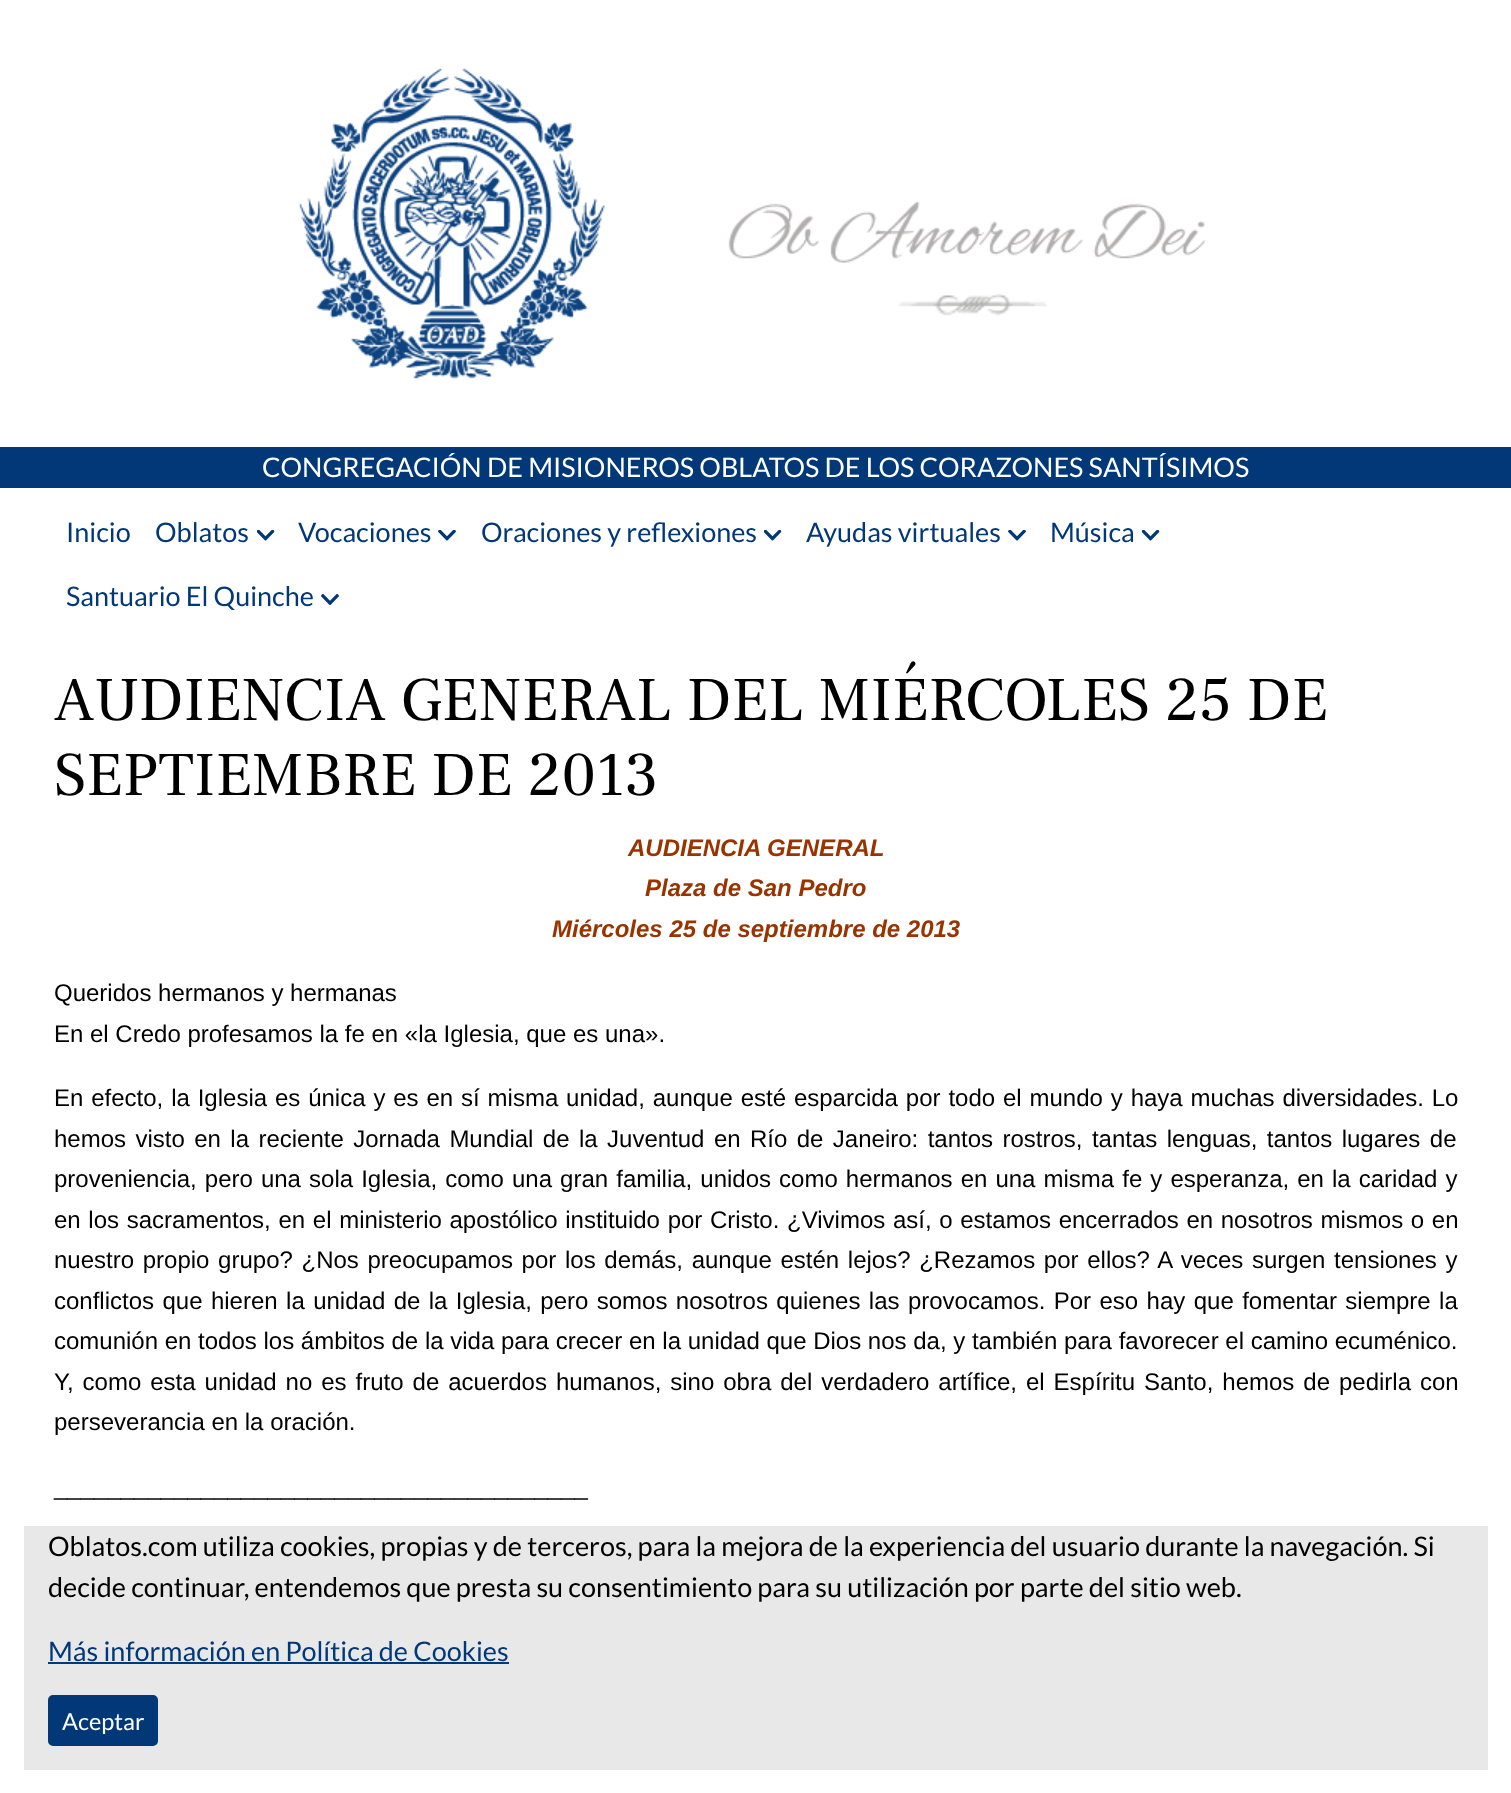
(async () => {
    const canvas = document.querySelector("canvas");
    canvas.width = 1511;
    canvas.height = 1793;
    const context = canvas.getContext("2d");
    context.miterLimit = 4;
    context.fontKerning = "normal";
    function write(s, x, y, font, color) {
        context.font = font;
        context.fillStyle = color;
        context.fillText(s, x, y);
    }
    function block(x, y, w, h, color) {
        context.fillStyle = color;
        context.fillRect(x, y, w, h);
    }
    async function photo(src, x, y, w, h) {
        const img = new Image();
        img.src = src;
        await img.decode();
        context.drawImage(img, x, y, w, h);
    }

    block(0, 0, 1511, 1793, "rgb(255, 255, 255)");
    await photo("media/1.png", 298, 68, 908, 311);
    block(0, 447, 1511, 41, "rgb(2, 56, 120)");
    write("CONGREGACIÓN DE MISIONEROS OBLATOS DE LOS CORAZONES SANTÍSIMOS", 262, 477, "27px Lato", "rgb(255, 255, 255)");
    write("Inicio", 66, 542, "27px Lato", "rgb(2, 56, 120)");
    write("Oblatos", 155, 542, "27px Lato", "rgb(2, 56, 120)");
    await photo("media/2.png", 257, 530, 18, 11);
    write("Vocaciones", 298, 542, "27px Lato", "rgb(2, 56, 120)");
    await photo("media/3.png", 438, 530, 18, 11);
    write("Oraciones y reflexiones", 481, 542, "27px Lato", "rgb(2, 56, 120)");
    await photo("media/2.png", 764, 530, 18, 11);
    write("Ayudas virtuales", 806, 542, "27px Lato", "rgb(2, 56, 120)");
    await photo("media/4.png", 1008, 530, 18, 11);
    write("Música", 1050, 542, "27px Lato", "rgb(2, 56, 120)");
    await photo("media/2.png", 1142, 530, 18, 11);
    write("Santuario El Quinche", 66, 606, "27px Lato", "rgb(2, 56, 120)");
    await photo("media/5.png", 321, 594, 18, 11);
    write("AUDIENCIA GENERAL DEL MIÉRCOLES 25 DE", 54, 720, "62.1px Frank Ruhl Libre", "rgb(0, 0, 0)");
    write("SEPTIEMBRE DE 2013", 54, 795, "62.1px Frank Ruhl Libre", "rgb(0, 0, 0)");
    write("AUDIENCIA GENERAL", 628, 856, "italic bold 24px Liberation Sans", "rgb(153, 51, 0)");
    write("Plaza de San Pedro", 645, 896, "italic bold 24px Liberation Sans", "rgb(153, 51, 0)");
    write("Miércoles 25 de septiembre de 2013", 552, 937, "italic bold 24px Liberation Sans", "rgb(153, 51, 0)");
    write("Queridos hermanos y hermanas", 54, 1001, "24px Liberation Sans", "rgb(0, 0, 0)");
    write("En el Credo profesamos la fe en «la Iglesia, que es una».", 54, 1042, "24px Liberation Sans", "rgb(0, 0, 0)");
    context.wordSpacing = "1.2px";
    write("En efecto, la Iglesia es única y es en sí misma unidad, aunque esté esparcida por todo el mundo y haya muchas diversidades. Lo", 54, 1106, "24px Liberation Sans", "rgb(0, 0, 0)");
    context.wordSpacing = "2.75px";
    write("hemos visto en la reciente Jornada Mundial de la Juventud en Río de Janeiro: tantos rostros, tantas lenguas, tantos lugares de", 54, 1147, "24px Liberation Sans", "rgb(0, 0, 0)");
    context.wordSpacing = "1.4px";
    write("proveniencia, pero una sola Iglesia, como una gran familia, unidos como hermanos en una misma fe y esperanza, en la caridad y", 54, 1187, "24px Liberation Sans", "rgb(0, 0, 0)");
    context.wordSpacing = "1px";
    write("en los sacramentos, en el ministerio apostólico instituido por Cristo. ¿Vivimos así, o estamos encerrados en nosotros mismos o en", 54, 1228, "24px Liberation Sans", "rgb(0, 0, 0)");
    context.wordSpacing = "2px";
    write("nuestro propio grupo? ¿Nos preocupamos por los demás, aunque estén lejos? ¿Rezamos por ellos? A veces surgen tensiones y", 54, 1268, "24px Liberation Sans", "rgb(0, 0, 0)");
    context.wordSpacing = "1.75px";
    write("conflictos que hieren la unidad de la Iglesia, pero somos nosotros quienes las provocamos. Por eso hay que fomentar siempre la", 54, 1309, "24px Liberation Sans", "rgb(0, 0, 0)");
    context.wordSpacing = "0px";
    write("comunión en todos los ámbitos de la vida para crecer en la unidad que Dios nos da, y también para favorecer el camino ecuménico.", 54, 1349, "24px Liberation Sans", "rgb(0, 0, 0)");
    context.wordSpacing = "2.3px";
    write("Y, como esta unidad no es fruto de acuerdos humanos, sino obra del verdadero artífice, el Espíritu Santo, hemos de pedirla con", 54, 1390, "24px Liberation Sans", "rgb(0, 0, 0)");
    context.wordSpacing = "0px";
    write("perseverancia en la oración.", 54, 1430, "24px Liberation Sans", "rgb(0, 0, 0)");
    write("________________________________________", 54, 1495, "24px Liberation Sans", "rgb(0, 0, 0)");
    block(24, 1526, 1464, 244, "rgb(232, 232, 232)");
    write("Oblatos.com utiliza cookies, propias y de terceros, para la mejora de la experiencia del usuario durante la navegación. Si", 48, 1556, "27px Lato", "rgb(0, 0, 0)");
    write("decide continuar, entendemos que presta su consentimiento para su utilización por parte del sitio web.", 48, 1597, "27px Lato", "rgb(0, 0, 0)");
    write("Más información en Política de Cookies", 48, 1661, "27px Lato", "rgb(2, 56, 120)");
    block(48, 1662, 461, 2, "rgb(2, 56, 120)");
    context.beginPath();
    context.roundRect(49, 1696, 108, 49, 4);
    context.fill();
    context.strokeStyle = "rgb(2, 56, 120)";
    context.lineWidth = 2;
    context.stroke();
    write("Aceptar", 62, 1730, "23.5px Lato", "rgb(255, 255, 255)");
})();
